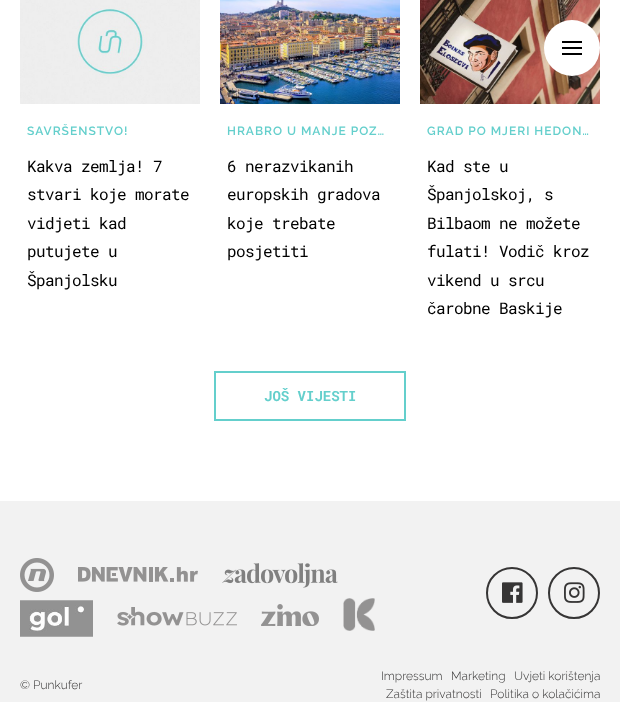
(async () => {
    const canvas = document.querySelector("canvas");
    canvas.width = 620;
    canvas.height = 702;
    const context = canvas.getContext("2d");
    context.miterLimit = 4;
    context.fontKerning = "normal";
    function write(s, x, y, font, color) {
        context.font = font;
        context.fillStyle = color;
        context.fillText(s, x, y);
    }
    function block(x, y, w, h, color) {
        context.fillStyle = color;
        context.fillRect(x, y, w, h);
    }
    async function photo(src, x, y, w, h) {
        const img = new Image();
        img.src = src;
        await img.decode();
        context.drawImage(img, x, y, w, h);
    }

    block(0, 0, 620, 702, "rgb(255, 255, 255)");
    await photo("media/3.png", 420, 0, 180, 104);
    context.beginPath();
    context.arc(572, 48, 28, 0, Math.PI * 2);
    context.fill();
    block(562, 47, 20, 2, "rgb(0, 0, 0)");
    block(562, 41, 20, 2, "rgb(0, 0, 0)");
    block(562, 53, 20, 2, "rgb(0, 0, 0)");
    await photo("media/1.png", 20, 0, 180, 104);
    context.letterSpacing = "1px";
    write("SAVRŠENSTVO!", 27, 135, "600 12px Raleway", "rgb(100, 207, 204)");
    context.letterSpacing = "-0.6px";
    write("Kakva zemlja! 7", 27, 172, "16px Roboto Mono", "rgb(0, 0, 0)");
    write("stvari koje morate", 27, 200, "16px Roboto Mono", "rgb(0, 0, 0)");
    write("vidjeti kad", 27, 229, "16px Roboto Mono", "rgb(0, 0, 0)");
    write("putujete u", 27, 257, "16px Roboto Mono", "rgb(0, 0, 0)");
    write("Španjolsku", 27, 286, "16px Roboto Mono", "rgb(0, 0, 0)");
    await photo("media/2.png", 220, 0, 180, 104);
    context.letterSpacing = "1px";
    write("HRABRO U MANJE POZ…", 227, 135, "600 12px Raleway", "rgb(100, 207, 204)");
    context.letterSpacing = "-0.6px";
    write("6 nerazvikanih", 227, 172, "16px Roboto Mono", "rgb(0, 0, 0)");
    write("europskih gradova", 227, 200, "16px Roboto Mono", "rgb(0, 0, 0)");
    write("koje trebate", 227, 229, "16px Roboto Mono", "rgb(0, 0, 0)");
    write("posjetiti", 227, 257, "16px Roboto Mono", "rgb(0, 0, 0)");
    context.letterSpacing = "1px";
    write("GRAD PO MJERI HEDON…", 427, 135, "600 12px Raleway", "rgb(100, 207, 204)");
    context.letterSpacing = "-0.6px";
    write("Kad ste u", 427, 172, "16px Roboto Mono", "rgb(0, 0, 0)");
    write("Španjolskoj, s", 427, 200, "16px Roboto Mono", "rgb(0, 0, 0)");
    write("Bilbaom ne možete", 427, 229, "16px Roboto Mono", "rgb(0, 0, 0)");
    write("fulati! Vodič kroz", 427, 257, "16px Roboto Mono", "rgb(0, 0, 0)");
    write("vikend u srcu", 427, 286, "16px Roboto Mono", "rgb(0, 0, 0)");
    write("čarobne Baskije", 427, 314, "16px Roboto Mono", "rgb(0, 0, 0)");
    context.strokeStyle = "rgb(100, 207, 204)";
    context.lineWidth = 2;
    context.strokeRect(215, 372, 190, 48);
    context.letterSpacing = "0px";
    write("JOŠ VIJESTI", 264, 401, "bold 14px Roboto Mono", "rgb(100, 207, 204)");
    block(0, 501, 620, 201, "rgb(242, 242, 242)");
    await photo("media/4.png", 20, 558, 34, 34);
    await photo("media/5.png", 78, 567, 120, 15);
    await photo("media/6.png", 222, 563, 116, 25);
    await photo("media/7.png", 20, 600, 73, 37);
    await photo("media/8.png", 117, 607, 120, 19);
    await photo("media/9.png", 261, 604, 58, 22);
    await photo("media/10.png", 343, 598, 32, 33);
    context.beginPath();
    context.arc(512, 593, 25, 0, Math.PI * 2);
    context.strokeStyle = "rgb(54, 53, 53)";
    context.stroke();
    await photo("media/11.png", 502, 582, 21, 21);
    context.beginPath();
    context.arc(574, 593, 25, 0, Math.PI * 2);
    context.stroke();
    await photo("media/12.png", 564, 582, 21, 21);
    write("© Punkufer", 20, 689, "300 12px Raleway", "rgb(54, 53, 53)");
    write("Impressum", 381, 680, "300 12px Raleway", "rgb(54, 53, 53)");
    write("Marketing", 451, 680, "300 12px Raleway", "rgb(54, 53, 53)");
    write("Uvjeti korištenja", 514, 680, "300 12px Raleway", "rgb(54, 53, 53)");
    write("Zaštita privatnosti", 386, 698, "300 12px Raleway", "rgb(54, 53, 53)");
    write("Politika o kolačićima", 490, 698, "300 12px Raleway", "rgb(54, 53, 53)");
})();
